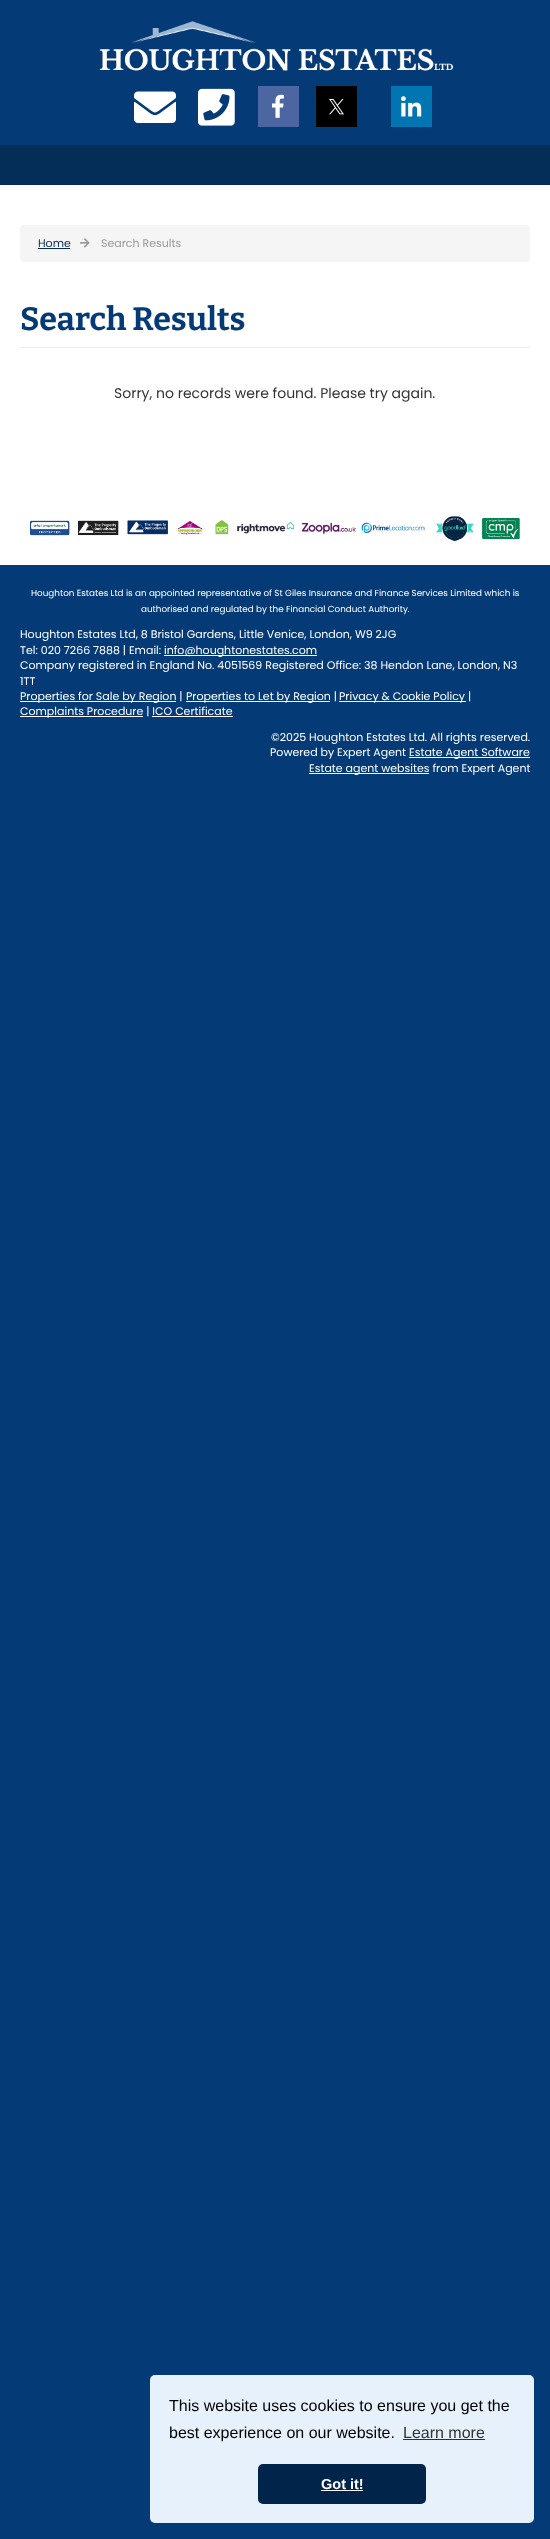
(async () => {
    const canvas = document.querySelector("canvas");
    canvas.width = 550;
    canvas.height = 2539;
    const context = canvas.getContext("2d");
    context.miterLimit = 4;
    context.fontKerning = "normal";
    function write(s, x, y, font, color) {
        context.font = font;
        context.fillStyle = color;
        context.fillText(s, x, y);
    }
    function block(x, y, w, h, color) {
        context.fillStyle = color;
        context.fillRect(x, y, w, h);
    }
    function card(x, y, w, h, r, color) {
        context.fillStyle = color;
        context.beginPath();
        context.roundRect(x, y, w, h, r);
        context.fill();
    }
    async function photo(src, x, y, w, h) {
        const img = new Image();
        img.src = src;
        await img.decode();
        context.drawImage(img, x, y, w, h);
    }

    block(0, 0, 550, 2539, "rgb(4, 59, 118)");
    await photo("media/1.png", 99, 21, 355, 50);
    await photo("media/2.png", 134, 91, 42, 32);
    await photo("media/3.png", 198, 88, 37, 38);
    block(258, 86, 41, 41, "rgb(75, 102, 160)");
    await photo("media/4.png", 272, 94, 12, 24);
    block(316, 86, 41, 41, "rgb(0, 0, 0)");
    await photo("media/5.png", 329, 99, 15, 16);
    block(391, 86, 41, 41, "rgb(0, 117, 178)");
    await photo("media/6.png", 401, 96, 21, 21);
    block(0, 145, 550, 40, "rgb(4, 45, 88)");
    block(0, 185, 550, 380, "rgb(255, 255, 255)");
    card(20, 225, 510, 37, 4, "rgb(245, 245, 245)");
    write("Home", 38, 247, "11px Poppins", "rgb(4, 45, 88)");
    block(38, 248, 32, 1, "rgb(4, 45, 88)");
    await photo("media/7.png", 80, 238, 10, 10);
    write("Search Results", 101, 247, "11px Poppins", "rgb(153, 153, 153)");
    block(20, 347, 510, 1, "rgb(238, 238, 238)");
    write("Search Results", 20, 330, "bold 32.25px Bitter", "rgb(4, 59, 118)");
    write("Sorry, no records were found. Please try again.", 114, 398, "14px Poppins", "rgb(51, 51, 51)");
    await photo("media/8.png", 30, 516, 490, 25);
    write("Houghton Estates Ltd is an appointed representative of St Giles Insurance and Finance Services Limited which is", 31, 596, "8.8px Poppins", "rgb(255, 255, 255)");
    write("authorised and regulated by the Financial Conduct Authority.", 141, 612, "8.8px Poppins", "rgb(255, 255, 255)");
    write("Houghton Estates Ltd, 8 Bristol Gardens, Little Venice, London, W9 2JG", 20, 638, "11px Poppins", "rgb(255, 255, 255)");
    write("Tel: 020 7266 7888 | Email:", 20, 654, "11px Poppins", "rgb(255, 255, 255)");
    block(164, 655, 153, 1, "rgb(255, 255, 255)");
    write("info@houghtonestates.com", 164, 654, "11px Poppins", "rgb(255, 255, 255)");
    write("Company registered in England No. 4051569 Registered Office: 38 Hendon Lane, London, N3", 20, 669, "11px Poppins", "rgb(255, 255, 255)");
    write("1TT", 20, 685, "11px Poppins", "rgb(255, 255, 255)");
    block(20, 701, 156, 1, "rgb(255, 255, 255)");
    write("Properties for Sale by Region |", 20, 700, "11px Poppins", "rgb(255, 255, 255)");
    block(186, 701, 144, 1, "rgb(255, 255, 255)");
    write("Properties to Let by Region |", 186, 700, "11px Poppins", "rgb(255, 255, 255)");
    block(339, 701, 127, 1, "rgb(255, 255, 255)");
    write("Privacy & Cookie Policy |", 339, 700, "11px Poppins", "rgb(255, 255, 255)");
    block(20, 716, 123, 1, "rgb(255, 255, 255)");
    write("Complaints Procedure | ICO Certificate", 20, 715, "11px Poppins", "rgb(255, 255, 255)");
    block(152, 716, 81, 1, "rgb(255, 255, 255)");
    write("©2025 Houghton Estates Ltd. All rights reserved.", 271, 741, "11px Poppins", "rgb(255, 255, 255)");
    write("Powered by Expert Agent", 270, 756, "11px Poppins", "rgb(255, 255, 255)");
    block(409, 757, 121, 1, "rgb(255, 255, 255)");
    write("Estate Agent Software", 409, 756, "11px Poppins", "rgb(255, 255, 255)");
    block(309, 773, 120, 1, "rgb(255, 255, 255)");
    write("Estate agent websites from Expert Agent", 309, 772, "11px Poppins", "rgb(255, 255, 255)");
    card(150, 2375, 384, 148, 5, "rgb(230, 241, 252)");
    write("This website uses cookies to ensure you get the", 169, 2411, "16px Liberation Sans", "rgb(0, 0, 0)");
    write("best experience on our website.", 169, 2438, "16px Liberation Sans", "rgb(0, 0, 0)");
    write("Learn more", 403, 2438, "16px Liberation Sans", "rgb(51, 51, 51)");
    block(403, 2439, 82, 1, "rgb(46, 48, 50)");
    card(258, 2464, 168, 40, 5, "rgb(1, 37, 74)");
    write("Got it!", 321, 2489, "bold 14.5px Liberation Sans", "rgb(255, 255, 255)");
    block(321, 2490, 42, 1, "rgb(255, 255, 255)");
})();
